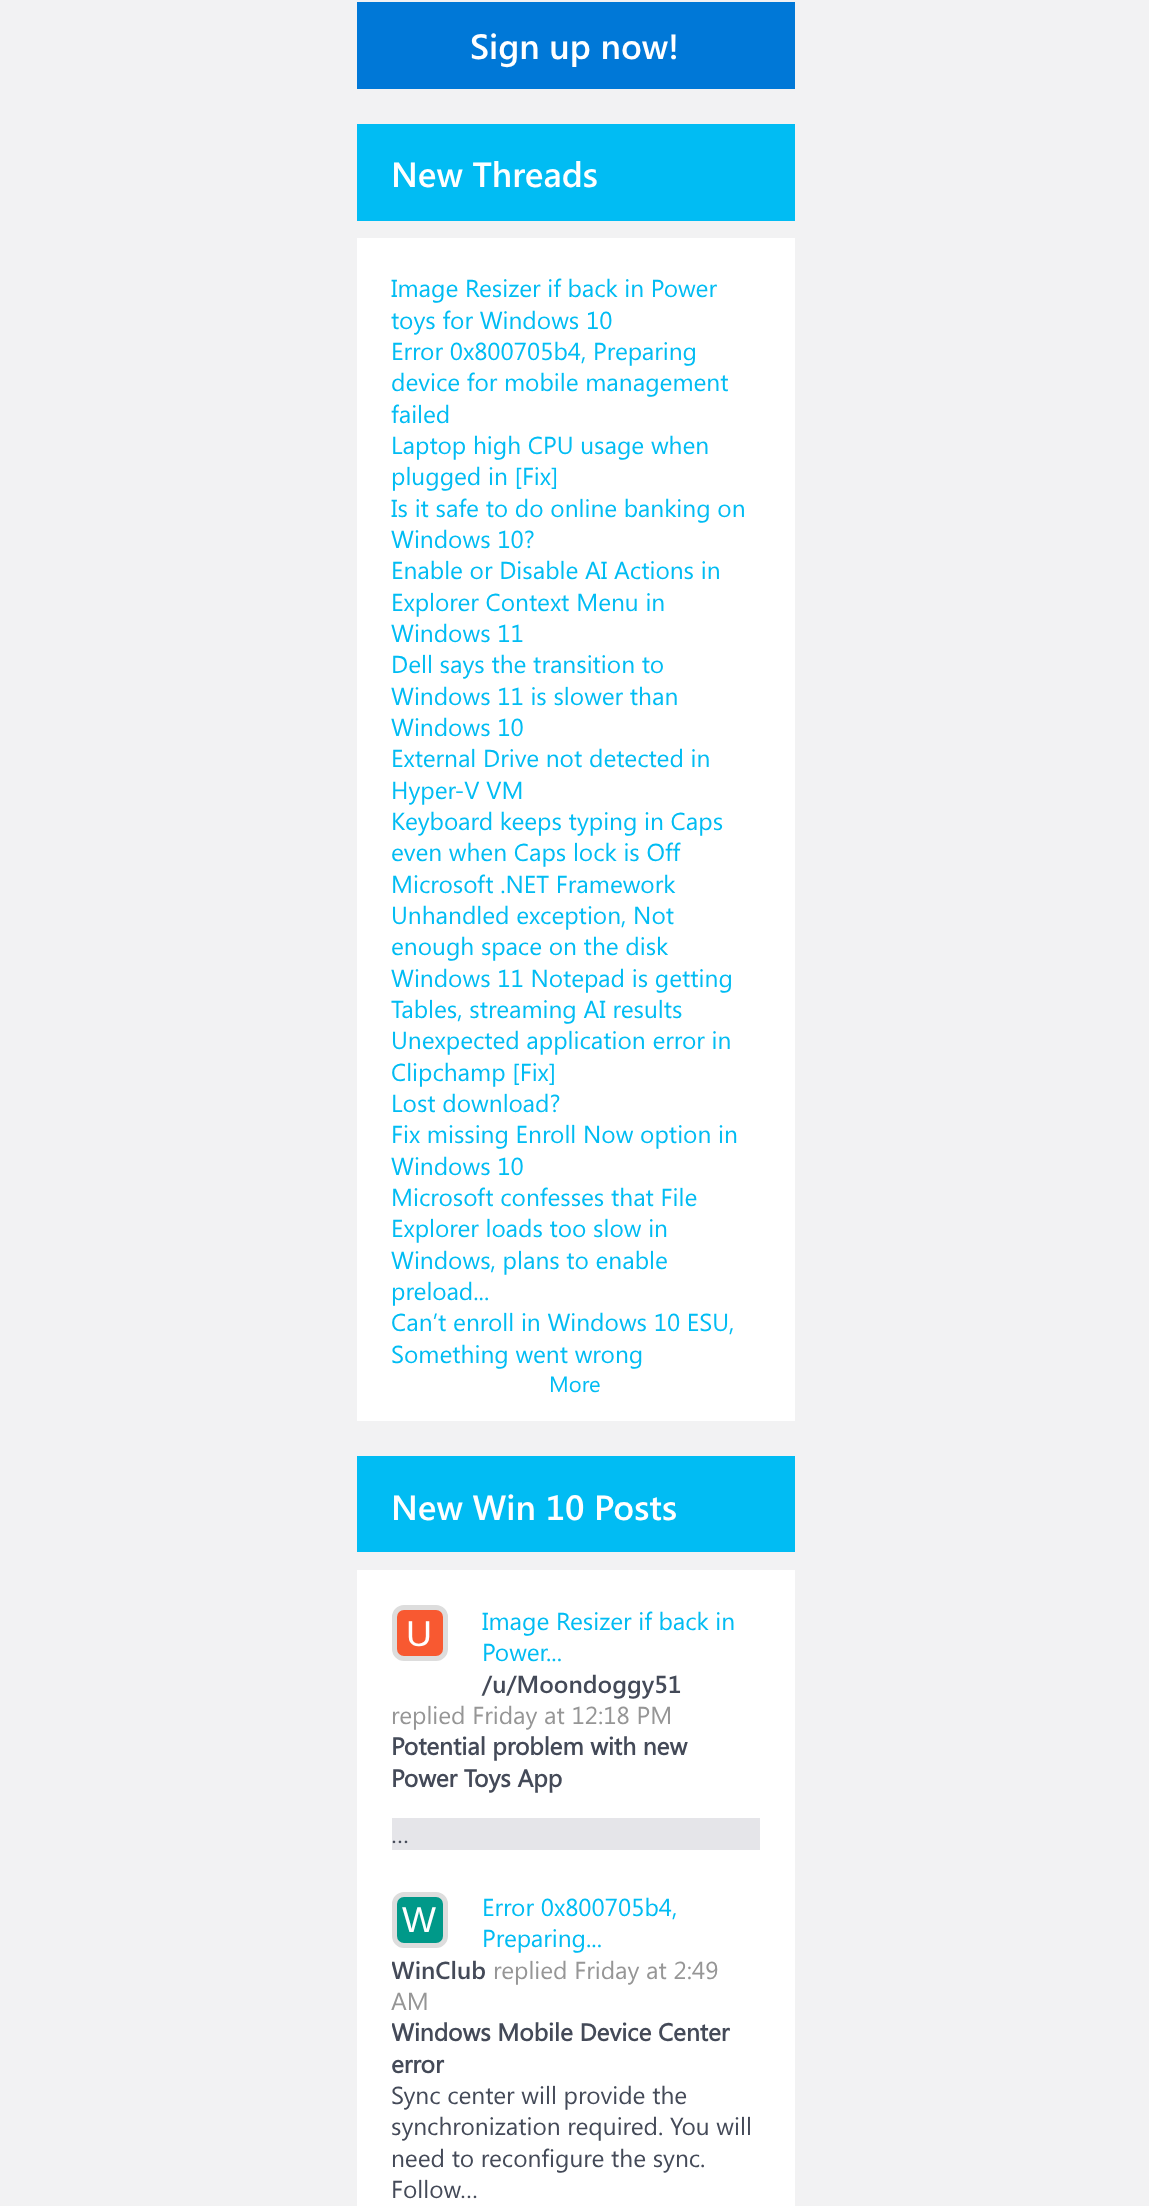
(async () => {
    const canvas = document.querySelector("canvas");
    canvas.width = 1149;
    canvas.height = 2206;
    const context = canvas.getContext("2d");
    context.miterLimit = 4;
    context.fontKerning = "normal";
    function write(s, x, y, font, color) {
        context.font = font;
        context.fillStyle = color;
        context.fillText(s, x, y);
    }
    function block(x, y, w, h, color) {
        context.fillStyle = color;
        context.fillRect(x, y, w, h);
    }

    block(0, 0, 1149, 2206, "rgb(242, 242, 243)");
    block(357, 2, 438, 87, "rgb(0, 120, 215)");
    write("Sign up now!", 470, 59, "600 35px Segoe UI", "rgb(255, 255, 255)");
    block(357, 124, 438, 97, "rgb(1, 188, 243)");
    write("New Threads", 391, 187, "600 35px Segoe UI", "rgb(255, 255, 255)");
    block(357, 238, 438, 1183, "rgb(255, 255, 255)");
    write("Image Resizer if back in Power", 391, 297, "24.5px Segoe UI", "rgb(1, 188, 243)");
    write("toys for Windows 10", 391, 329, "24.5px Segoe UI", "rgb(1, 188, 243)");
    write("Error 0x800705b4, Preparing", 391, 360, "24.5px Segoe UI", "rgb(1, 188, 243)");
    write("device for mobile management", 391, 391, "24.5px Segoe UI", "rgb(1, 188, 243)");
    write("failed", 391, 423, "24.5px Segoe UI", "rgb(1, 188, 243)");
    write("Laptop high CPU usage when", 391, 454, "24.5px Segoe UI", "rgb(1, 188, 243)");
    write("plugged in [Fix]", 391, 485, "24.5px Segoe UI", "rgb(1, 188, 243)");
    write("Is it safe to do online banking on", 391, 517, "24.5px Segoe UI", "rgb(1, 188, 243)");
    write("Windows 10?", 391, 548, "24.5px Segoe UI", "rgb(1, 188, 243)");
    write("Enable or Disable AI Actions in", 391, 579, "24.5px Segoe UI", "rgb(1, 188, 243)");
    write("Explorer Context Menu in", 391, 611, "24.5px Segoe UI", "rgb(1, 188, 243)");
    write("Windows 11", 391, 642, "24.5px Segoe UI", "rgb(1, 188, 243)");
    write("Dell says the transition to", 391, 673, "24.5px Segoe UI", "rgb(1, 188, 243)");
    write("Windows 11 is slower than", 391, 705, "24.5px Segoe UI", "rgb(1, 188, 243)");
    write("Windows 10", 391, 736, "24.5px Segoe UI", "rgb(1, 188, 243)");
    write("External Drive not detected in", 391, 767, "24.5px Segoe UI", "rgb(1, 188, 243)");
    write("Hyper-V VM", 391, 799, "24.5px Segoe UI", "rgb(1, 188, 243)");
    write("Keyboard keeps typing in Caps", 391, 830, "24.5px Segoe UI", "rgb(1, 188, 243)");
    write("even when Caps lock is Off", 391, 861, "24.5px Segoe UI", "rgb(1, 188, 243)");
    write("Microsoft .NET Framework", 391, 893, "24.5px Segoe UI", "rgb(1, 188, 243)");
    write("Unhandled exception, Not", 391, 924, "24.5px Segoe UI", "rgb(1, 188, 243)");
    write("enough space on the disk", 391, 955, "24.5px Segoe UI", "rgb(1, 188, 243)");
    write("Windows 11 Notepad is getting", 391, 987, "24.5px Segoe UI", "rgb(1, 188, 243)");
    write("Tables, streaming AI results", 391, 1018, "24.5px Segoe UI", "rgb(1, 188, 243)");
    write("Unexpected application error in", 391, 1049, "24.5px Segoe UI", "rgb(1, 188, 243)");
    write("Clipchamp [Fix]", 391, 1081, "24.5px Segoe UI", "rgb(1, 188, 243)");
    write("Lost download?", 391, 1112, "24.5px Segoe UI", "rgb(1, 188, 243)");
    write("Fix missing Enroll Now option in", 391, 1143, "24.5px Segoe UI", "rgb(1, 188, 243)");
    write("Windows 10", 391, 1175, "24.5px Segoe UI", "rgb(1, 188, 243)");
    write("Microsoft confesses that File", 391, 1206, "24.5px Segoe UI", "rgb(1, 188, 243)");
    write("Explorer loads too slow in", 391, 1237, "24.5px Segoe UI", "rgb(1, 188, 243)");
    write("Windows, plans to enable", 391, 1269, "24.5px Segoe UI", "rgb(1, 188, 243)");
    write("preload...", 391, 1300, "24.5px Segoe UI", "rgb(1, 188, 243)");
    write("Can’t enroll in Windows 10 ESU,", 391, 1331, "24.5px Segoe UI", "rgb(1, 188, 243)");
    write("Something went wrong", 391, 1363, "24.5px Segoe UI", "rgb(1, 188, 243)");
    write("More", 549, 1392, "22px Segoe UI", "rgb(1, 188, 243)");
    block(357, 1456, 438, 96, "rgb(1, 188, 243)");
    write("New Win 10 Posts", 391, 1520, "600 35px Segoe UI", "rgb(255, 255, 255)");
    block(357, 1570, 438, 636, "rgb(255, 255, 255)");
    context.fillStyle = "rgb(248, 89, 49)";
    context.beginPath();
    context.roundRect(394.5, 1607.5, 51, 51, 9.5);
    context.fill();
    context.strokeStyle = "rgb(221, 221, 221)";
    context.lineWidth = 5;
    context.stroke();
    write("U", 406, 1646, "36px Liberation Sans", "rgb(255, 255, 255)");
    write("Image Resizer if back in", 482, 1630, "24.5px Segoe UI", "rgb(1, 188, 243)");
    write("Power...", 482, 1661, "24.5px Segoe UI", "rgb(1, 188, 243)");
    write("/u/Moondoggy51", 482, 1693, "600 24.5px Segoe UI", "rgb(68, 74, 88)");
    write("replied Friday at 12:18 PM", 391, 1724, "24.5px Segoe UI", "rgb(150, 150, 150)");
    write("Potential problem with new", 391, 1755, "bold 24.5px Segoe UI", "rgb(68, 74, 88)");
    write("Power Toys App", 391, 1787, "bold 24.5px Segoe UI", "rgb(68, 74, 88)");
    block(392, 1818, 368, 32, "rgb(229, 229, 233)");
    write("…", 391, 1843, "24.5px Segoe UI", "rgb(68, 74, 88)");
    context.fillStyle = "rgb(0, 153, 137)";
    context.beginPath();
    context.roundRect(394.5, 1894.5, 51, 51, 9.5);
    context.fill();
    context.stroke();
    write("W", 402, 1932, "36px Liberation Sans", "rgb(255, 255, 255)");
    write("Error 0x800705b4,", 482, 1916, "24.5px Segoe UI", "rgb(1, 188, 243)");
    write("Preparing...", 482, 1947, "24.5px Segoe UI", "rgb(1, 188, 243)");
    context.save();
    context.beginPath();
    context.rect(392, 1892, 368, 313);
    context.clip();
    write("WinClub", 391, 1979, "600 24.5px Segoe UI", "rgb(68, 74, 88)");
    context.restore();
    write("replied Friday at 2:49", 493, 1979, "24.5px Segoe UI", "rgb(150, 150, 150)");
    write("AM", 391, 2010, "24.5px Segoe UI", "rgb(150, 150, 150)");
    context.save();
    context.beginPath();
    context.rect(392, 1892, 368, 313);
    context.clip();
    write("Windows Mobile Device Center", 391, 2041, "bold 24.5px Segoe UI", "rgb(68, 74, 88)");
    context.restore();
    write("error", 391, 2073, "bold 24.5px Segoe UI", "rgb(68, 74, 88)");
    write("Sync center will provide the", 391, 2104, "24.5px Segoe UI", "rgb(68, 74, 88)");
    write("synchronization required. You will", 391, 2135, "24.5px Segoe UI", "rgb(68, 74, 88)");
    write("need to reconfigure the sync.", 391, 2167, "24.5px Segoe UI", "rgb(68, 74, 88)");
    write("Follow…", 391, 2198, "24.5px Segoe UI", "rgb(68, 74, 88)");
})();
